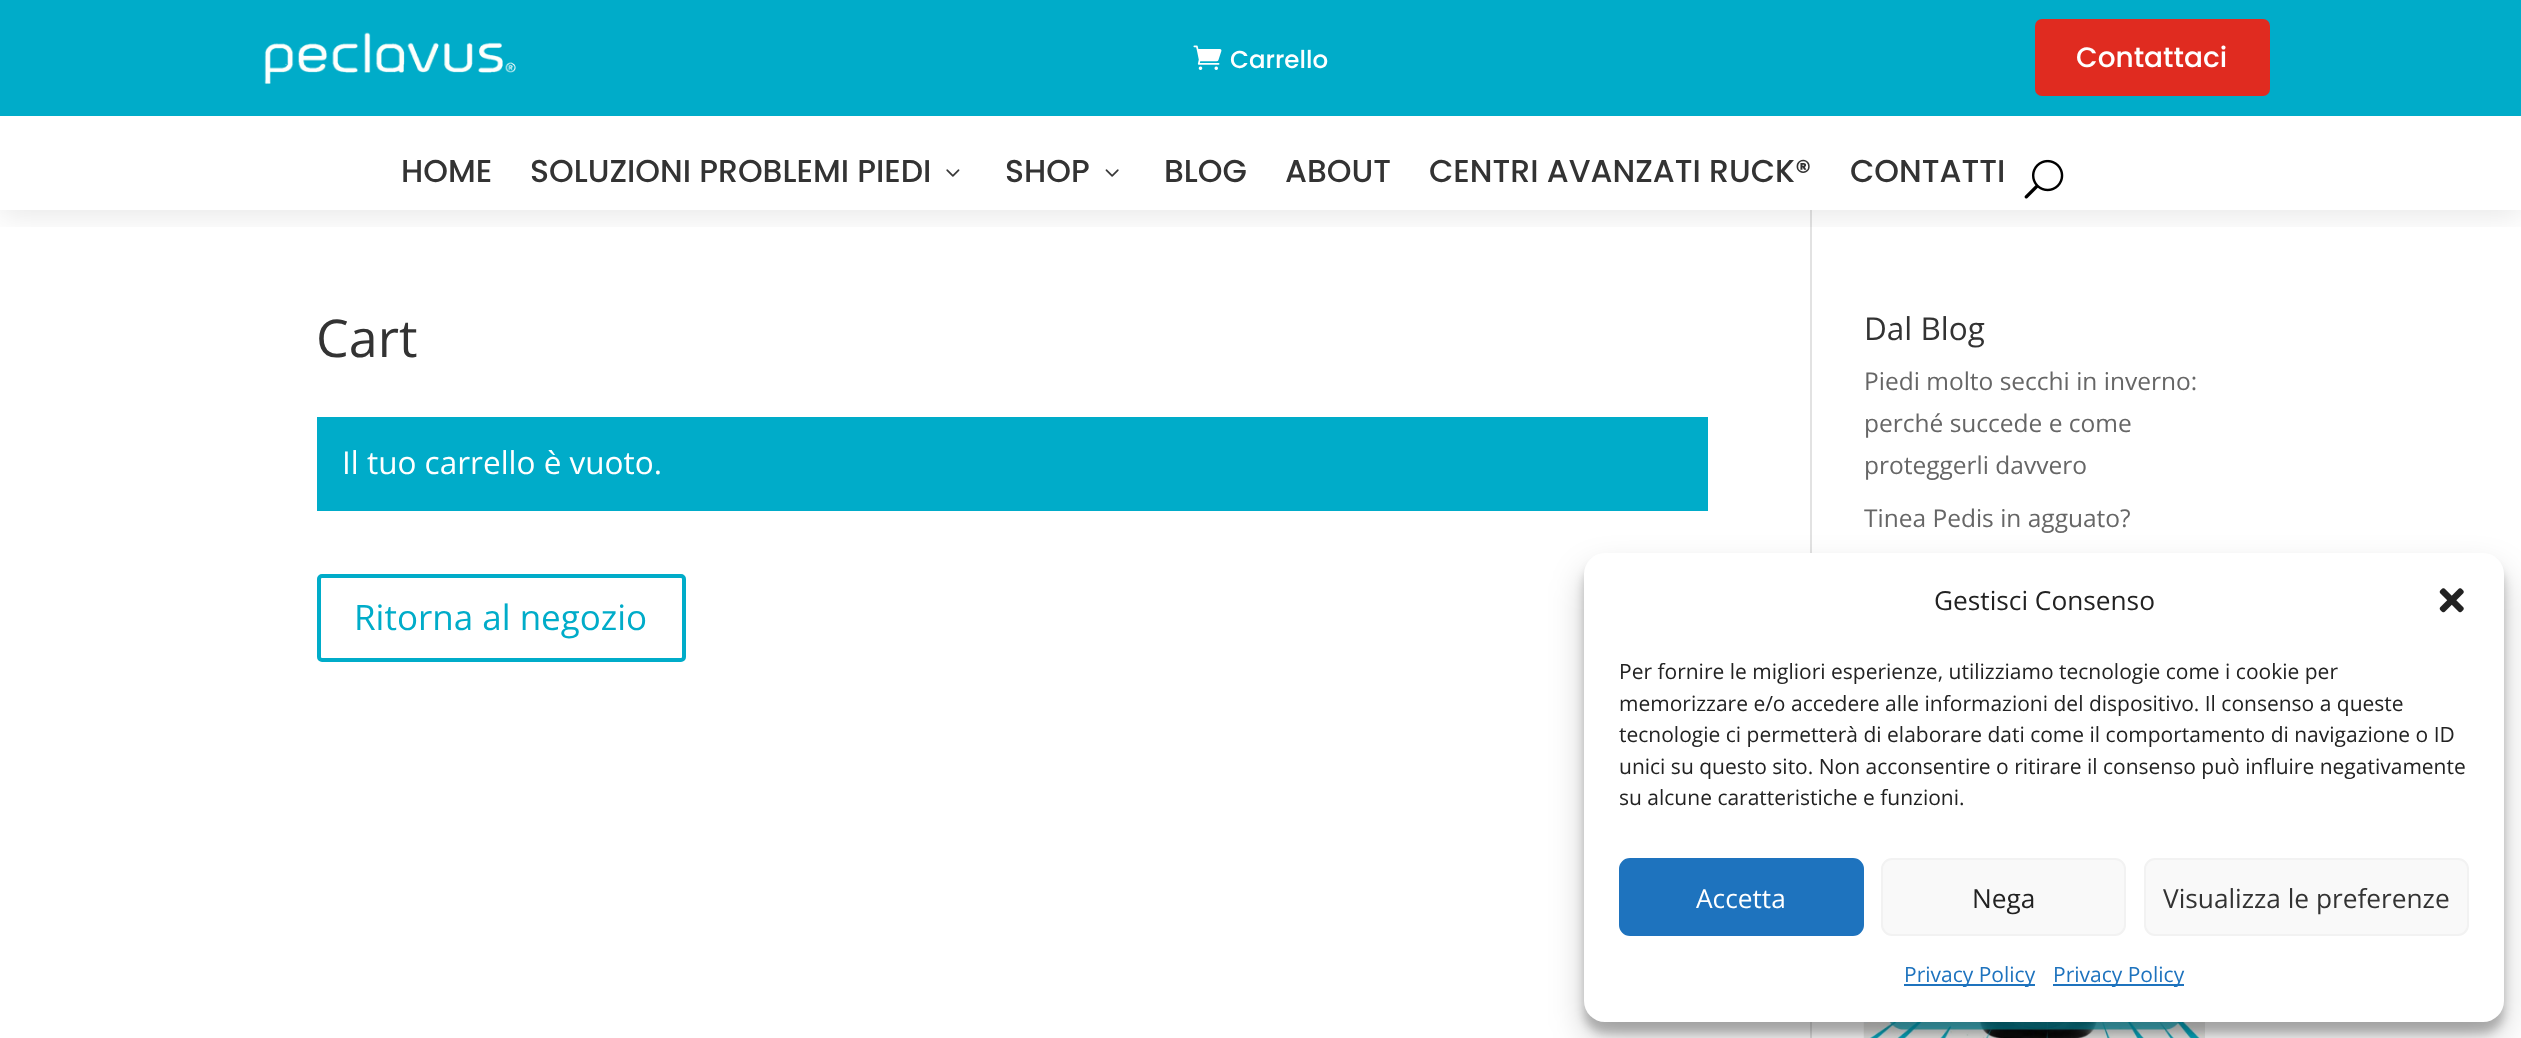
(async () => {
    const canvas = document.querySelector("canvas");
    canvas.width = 2521;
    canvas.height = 1038;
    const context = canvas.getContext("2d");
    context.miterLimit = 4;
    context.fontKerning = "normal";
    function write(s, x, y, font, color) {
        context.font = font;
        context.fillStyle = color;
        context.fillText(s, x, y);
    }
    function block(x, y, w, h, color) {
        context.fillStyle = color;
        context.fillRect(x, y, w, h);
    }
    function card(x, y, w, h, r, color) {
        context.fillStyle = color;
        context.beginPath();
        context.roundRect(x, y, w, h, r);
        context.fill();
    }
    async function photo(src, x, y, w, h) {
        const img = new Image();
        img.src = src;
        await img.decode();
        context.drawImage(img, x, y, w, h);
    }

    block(0, 0, 2521, 1038, "rgb(255, 255, 255)");
    block(1810, 210, 2, 828, "rgb(226, 226, 226)");
    context.save();
    context.beginPath();
    context.rect(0, 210, 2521, 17);
    context.clip();
    context.fillStyle = "rgba(0, 0, 0, 0.1)";
    context.filter = "blur(16px)";
    context.beginPath();
    context.rect(0, 4, 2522, 210);
    context.fill();
    context.filter = "none";
    context.restore();
    block(0, 0, 2521, 116, "rgb(0, 172, 201)");
    await photo("media/1.png", 264, 32, 252, 52);
    await photo("media/2.png", 1193, 45, 29, 25);
    write("Carrello", 1230, 68, "500 24.5px Poppins", "rgb(255, 255, 255)");
    card(2035, 19, 235, 77, 7, "rgb(224, 43, 32)");
    write("Contattaci", 2076, 67, "500 28px Poppins", "rgb(255, 255, 255)");
    write("HOME", 401, 182, "500 31.5px Poppins", "rgb(51, 51, 51)");
    write("SOLUZIONI PROBLEMI PIEDI", 530, 182, "500 31.5px Poppins", "rgb(51, 51, 51)");
    await photo("media/3.png", 946, 169, 14, 8);
    write("SHOP", 1005, 182, "500 31.5px Poppins", "rgb(51, 51, 51)");
    await photo("media/4.png", 1105, 169, 14, 8);
    write("BLOG", 1164, 182, "500 31.5px Poppins", "rgb(51, 51, 51)");
    write("ABOUT", 1285, 182, "500 31.5px Poppins", "rgb(51, 51, 51)");
    write("CENTRI AVANZATI RUCK®", 1429, 182, "500 31.5px Poppins", "rgb(51, 51, 51)");
    write("CONTATTI", 1850, 182, "500 31.5px Poppins", "rgb(51, 51, 51)");
    await photo("media/5.png", 2024, 159, 40, 40);
    write("Cart", 316, 357, "52px Open Sans", "rgb(51, 51, 51)");
    block(317, 417, 1391, 94, "rgb(0, 172, 201)");
    write("Il tuo carrello è vuoto.", 342, 474, "31.5px Open Sans", "rgb(255, 255, 255)");
    context.beginPath();
    context.roundRect(319, 576, 365, 84, 3);
    context.strokeStyle = "rgb(0, 172, 201)";
    context.lineWidth = 4;
    context.stroke();
    write("Ritorna al negozio", 354, 630, "35px Open Sans", "rgb(0, 172, 201)");
    write("Dal Blog", 1864, 340, "31.5px Open Sans", "rgb(51, 51, 51)");
    write("Piedi molto secchi in inverno:", 1864, 390, "24.5px Open Sans", "rgb(102, 102, 102)");
    write("perché succede e come", 1864, 432, "24.5px Open Sans", "rgb(102, 102, 102)");
    write("proteggerli davvero", 1864, 474, "24.5px Open Sans", "rgb(102, 102, 102)");
    write("Tinea Pedis in agguato?", 1864, 527, "24.5px Open Sans", "rgb(102, 102, 102)");
    await photo("media/6.png", 1863, 1022, 342, 16);
    context.fillStyle = "rgba(0, 0, 0, 0.23)";
    context.filter = "blur(5px)";
    context.beginPath();
    context.roundRect(1584, 564, 920, 469, 21);
    context.fill();
    context.filter = "none";
    context.fillStyle = "rgba(0, 0, 0, 0.19)";
    context.filter = "blur(17.5px)";
    context.beginPath();
    context.roundRect(1584, 571, 920, 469, 21);
    context.fill();
    context.filter = "none";
    card(1584, 553, 920, 469, 21, "rgb(255, 255, 255)");
    write("Gestisci Consenso", 1934, 610, "26.25px Open Sans", "rgb(34, 34, 34)");
    await photo("media/7.png", 2439, 588, 25, 25);
    write("Per fornire le migliori esperienze, utilizziamo tecnologie come i cookie per", 1619, 679, "21px Open Sans", "rgb(34, 34, 34)");
    write("memorizzare e/o accedere alle informazioni del dispositivo. Il consenso a queste", 1619, 711, "21px Open Sans", "rgb(34, 34, 34)");
    write("tecnologie ci permetterà di elaborare dati come il comportamento di navigazione o ID", 1619, 742, "21px Open Sans", "rgb(34, 34, 34)");
    write("unici su questo sito. Non acconsentire o ritirare il consenso può influire negativamente", 1619, 774, "21px Open Sans", "rgb(34, 34, 34)");
    write("su alcune caratteristiche e funzioni.", 1619, 805, "21px Open Sans", "rgb(34, 34, 34)");
    context.fillStyle = "rgb(30, 115, 190)";
    context.beginPath();
    context.roundRect(1620, 859, 243, 76, 10);
    context.fill();
    context.strokeStyle = "rgb(30, 115, 190)";
    context.lineWidth = 2;
    context.stroke();
    write("Accetta", 1696, 908, "26.25px Open Sans", "rgb(255, 255, 255)");
    context.fillStyle = "rgb(249, 249, 249)";
    context.beginPath();
    context.roundRect(1882, 859, 243, 76, 10);
    context.fill();
    context.strokeStyle = "rgb(242, 242, 242)";
    context.stroke();
    write("Nega", 1972, 908, "26.25px Open Sans", "rgb(34, 34, 34)");
    context.fillStyle = "rgb(249, 249, 249)";
    context.beginPath();
    context.roundRect(2145, 859, 323, 76, 10);
    context.fill();
    context.stroke();
    write("Visualizza le preferenze", 2163, 908, "26.25px Open Sans", "rgb(51, 51, 51)");
    block(1904, 984, 131, 2, "rgb(30, 115, 190)");
    write("Privacy Policy", 1904, 982, "21px Open Sans", "rgb(30, 115, 190)");
    block(2053, 984, 131, 2, "rgb(30, 115, 190)");
    write("Privacy Policy", 2053, 982, "21px Open Sans", "rgb(30, 115, 190)");
})();
